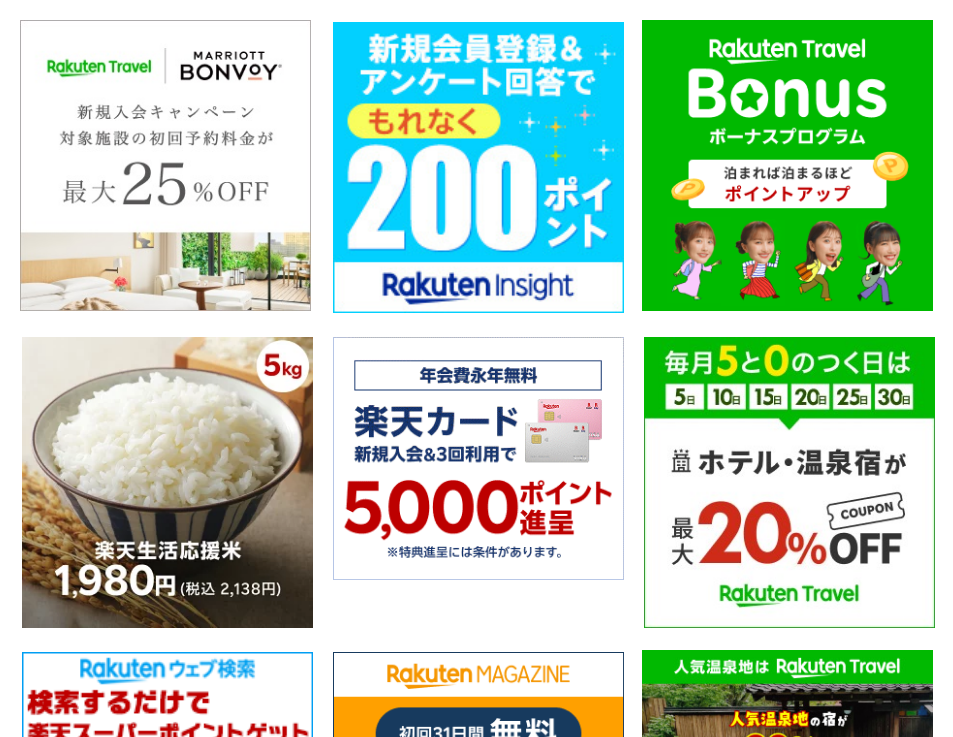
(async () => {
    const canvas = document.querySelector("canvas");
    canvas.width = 953;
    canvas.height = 737;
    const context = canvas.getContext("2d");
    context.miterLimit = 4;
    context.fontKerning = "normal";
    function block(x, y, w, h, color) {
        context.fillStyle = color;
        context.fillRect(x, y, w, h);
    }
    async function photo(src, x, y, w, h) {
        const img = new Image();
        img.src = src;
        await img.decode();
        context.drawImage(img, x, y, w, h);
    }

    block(0, 0, 953, 737, "rgb(255, 255, 255)");
    await photo("media/1.png", 20, 20, 291, 291);
    await photo("media/2.png", 333, 22, 291, 291);
    await photo("media/3.png", 642, 20, 291, 291);
    await photo("media/4.png", 22, 337, 291, 291);
    await photo("media/5.png", 333, 337, 291, 243);
    await photo("media/6.png", 644, 337, 291, 291);
    await photo("media/7.png", 22, 652, 291, 85);
    await photo("media/8.png", 333, 652, 291, 85);
    await photo("media/9.png", 642, 650, 291, 87);
})();
